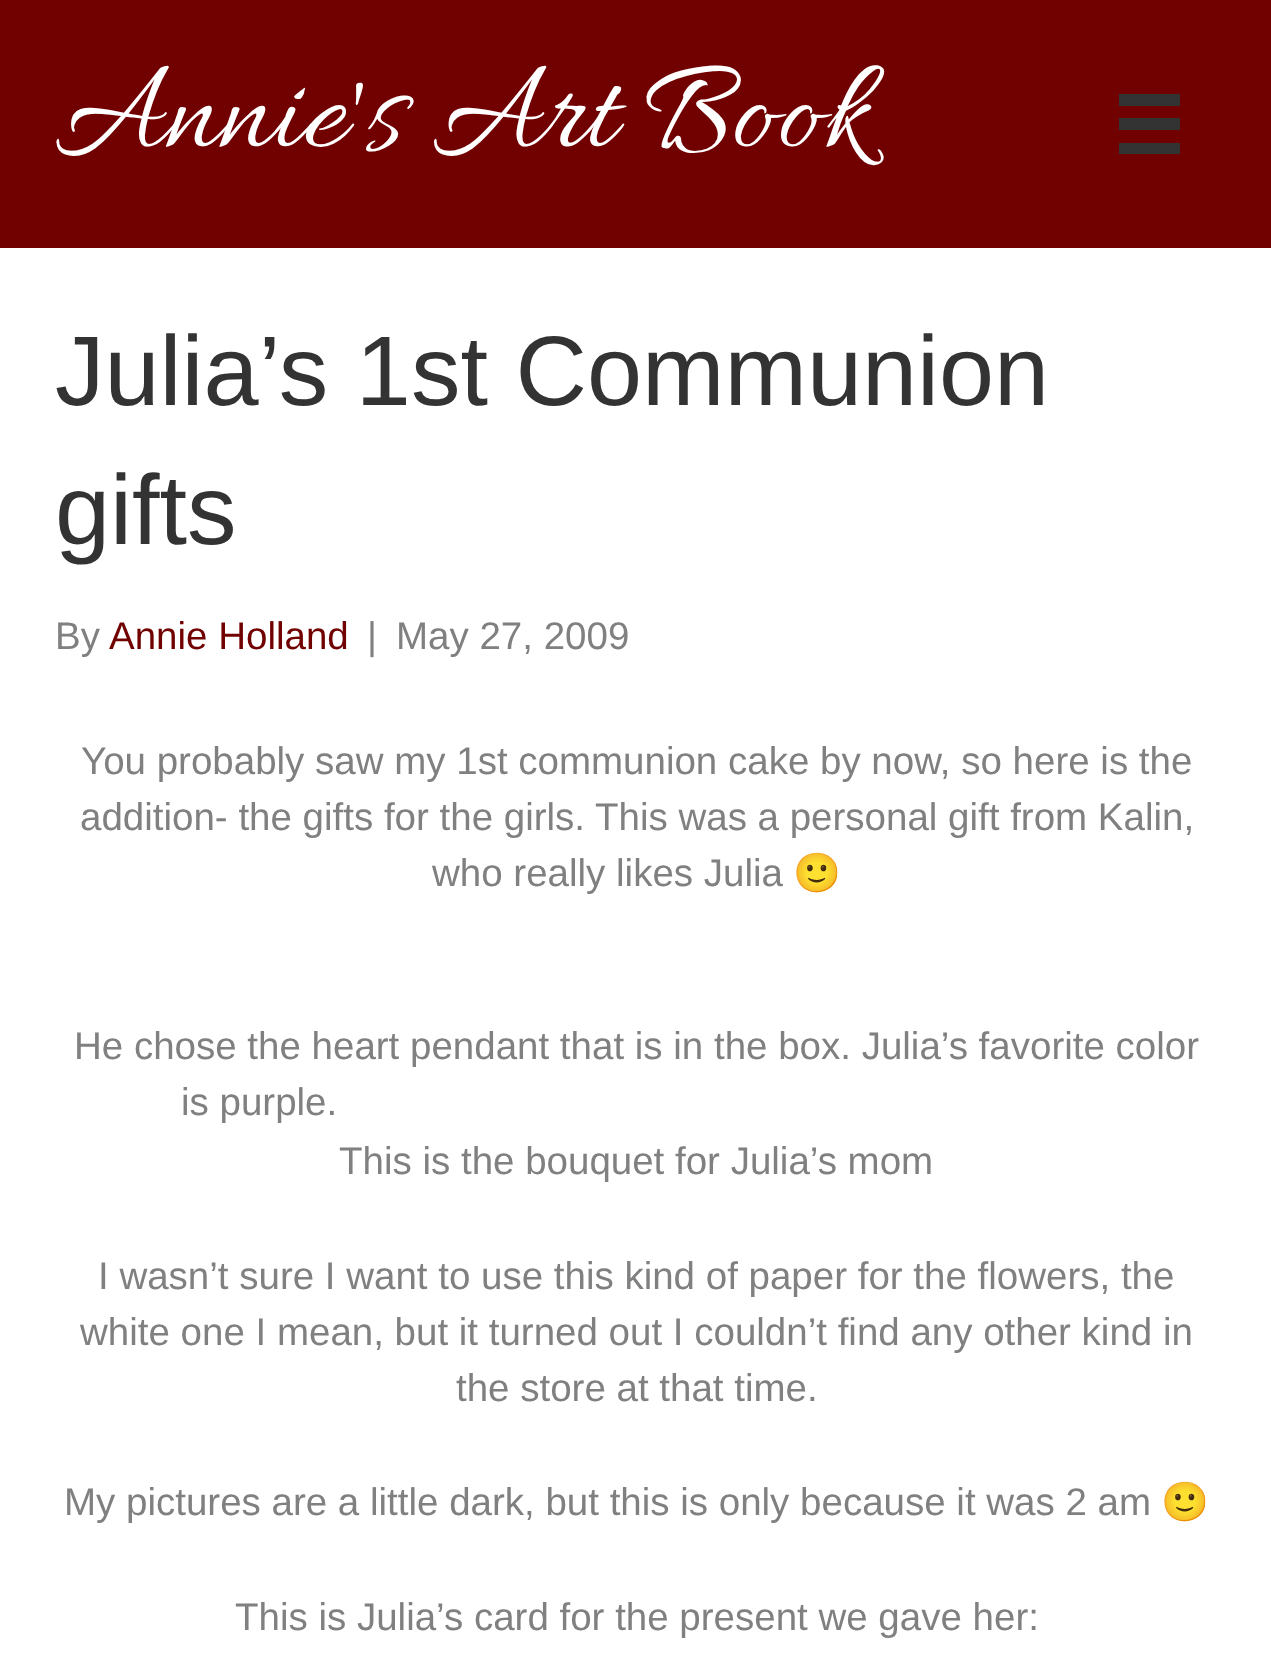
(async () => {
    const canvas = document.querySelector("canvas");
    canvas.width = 1271;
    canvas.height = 1653;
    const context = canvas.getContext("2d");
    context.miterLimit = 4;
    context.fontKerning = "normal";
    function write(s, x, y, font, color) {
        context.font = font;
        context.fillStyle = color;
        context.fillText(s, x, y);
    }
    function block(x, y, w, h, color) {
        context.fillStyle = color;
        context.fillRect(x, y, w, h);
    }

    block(0, 0, 1271, 1653, "rgb(255, 255, 255)");
    block(0, 0, 1271, 248, "rgb(113, 0, 1)");
    write("Annie's Art Book", 55, 145, "132px Allura", "rgb(255, 255, 255)");
    block(1119, 94, 61, 12, "rgb(51, 51, 51)");
    block(1119, 118, 61, 12, "rgb(51, 51, 51)");
    block(1119, 143, 61, 11, "rgb(51, 51, 51)");
    write("Julia’s 1st Communion", 55, 405, "99px Liberation Sans", "rgb(51, 51, 51)");
    write("gifts", 55, 544, "99px Liberation Sans", "rgb(51, 51, 51)");
    write("By", 55, 649, "38.5px Liberation Sans", "rgb(128, 128, 128)");
    write("Annie Holland", 109, 649, "38.5px Liberation Sans", "rgb(113, 0, 1)");
    write("|", 367, 649, "38.5px Liberation Sans", "rgb(128, 128, 128)");
    write("May 27, 2009", 396, 649, "38.5px Liberation Sans", "rgb(128, 128, 128)");
    write("You probably saw my 1st communion cake by now, so here is the", 81, 774, "38.5px Liberation Sans", "rgb(128, 128, 128)");
    write("addition- the gifts for the girls.", 80, 830, "38.5px Liberation Sans", "rgb(128, 128, 128)");
    write("This was a personal gift from Kalin,", 595, 830, "38.5px Liberation Sans", "rgb(128, 128, 128)");
    write("who really likes Julia", 432, 886, "38.5px Liberation Sans", "rgb(128, 128, 128)");
    write("🙂", 793, 886, "38.5px Noto Color Emoji", "rgb(128, 128, 128)");
    write("He chose the heart pendant that is in the box. Julia’s favorite color", 74, 1059, "38.5px Liberation Sans", "rgb(128, 128, 128)");
    write("is purple.", 181, 1115, "38.5px Liberation Sans", "rgb(128, 128, 128)");
    write("This is the bouquet for Julia’s mom", 339, 1174, "38.5px Liberation Sans", "rgb(128, 128, 128)");
    write("I wasn’t sure I want to use this kind of paper for the flowers, the", 98, 1289, "38.5px Liberation Sans", "rgb(128, 128, 128)");
    write("white one I mean, but it turned out I couldn’t find any other kind in", 80, 1345, "38.5px Liberation Sans", "rgb(128, 128, 128)");
    write("the store at that time.", 456, 1401, "38.5px Liberation Sans", "rgb(128, 128, 128)");
    write("My pictures are a little dark, but this is only because it was 2 am", 64, 1515, "38.5px Liberation Sans", "rgb(128, 128, 128)");
    write("🙂", 1161, 1515, "38.5px Noto Color Emoji", "rgb(128, 128, 128)");
    write("This is Julia’s card for the present we gave her:", 235, 1630, "38.5px Liberation Sans", "rgb(128, 128, 128)");
})();
